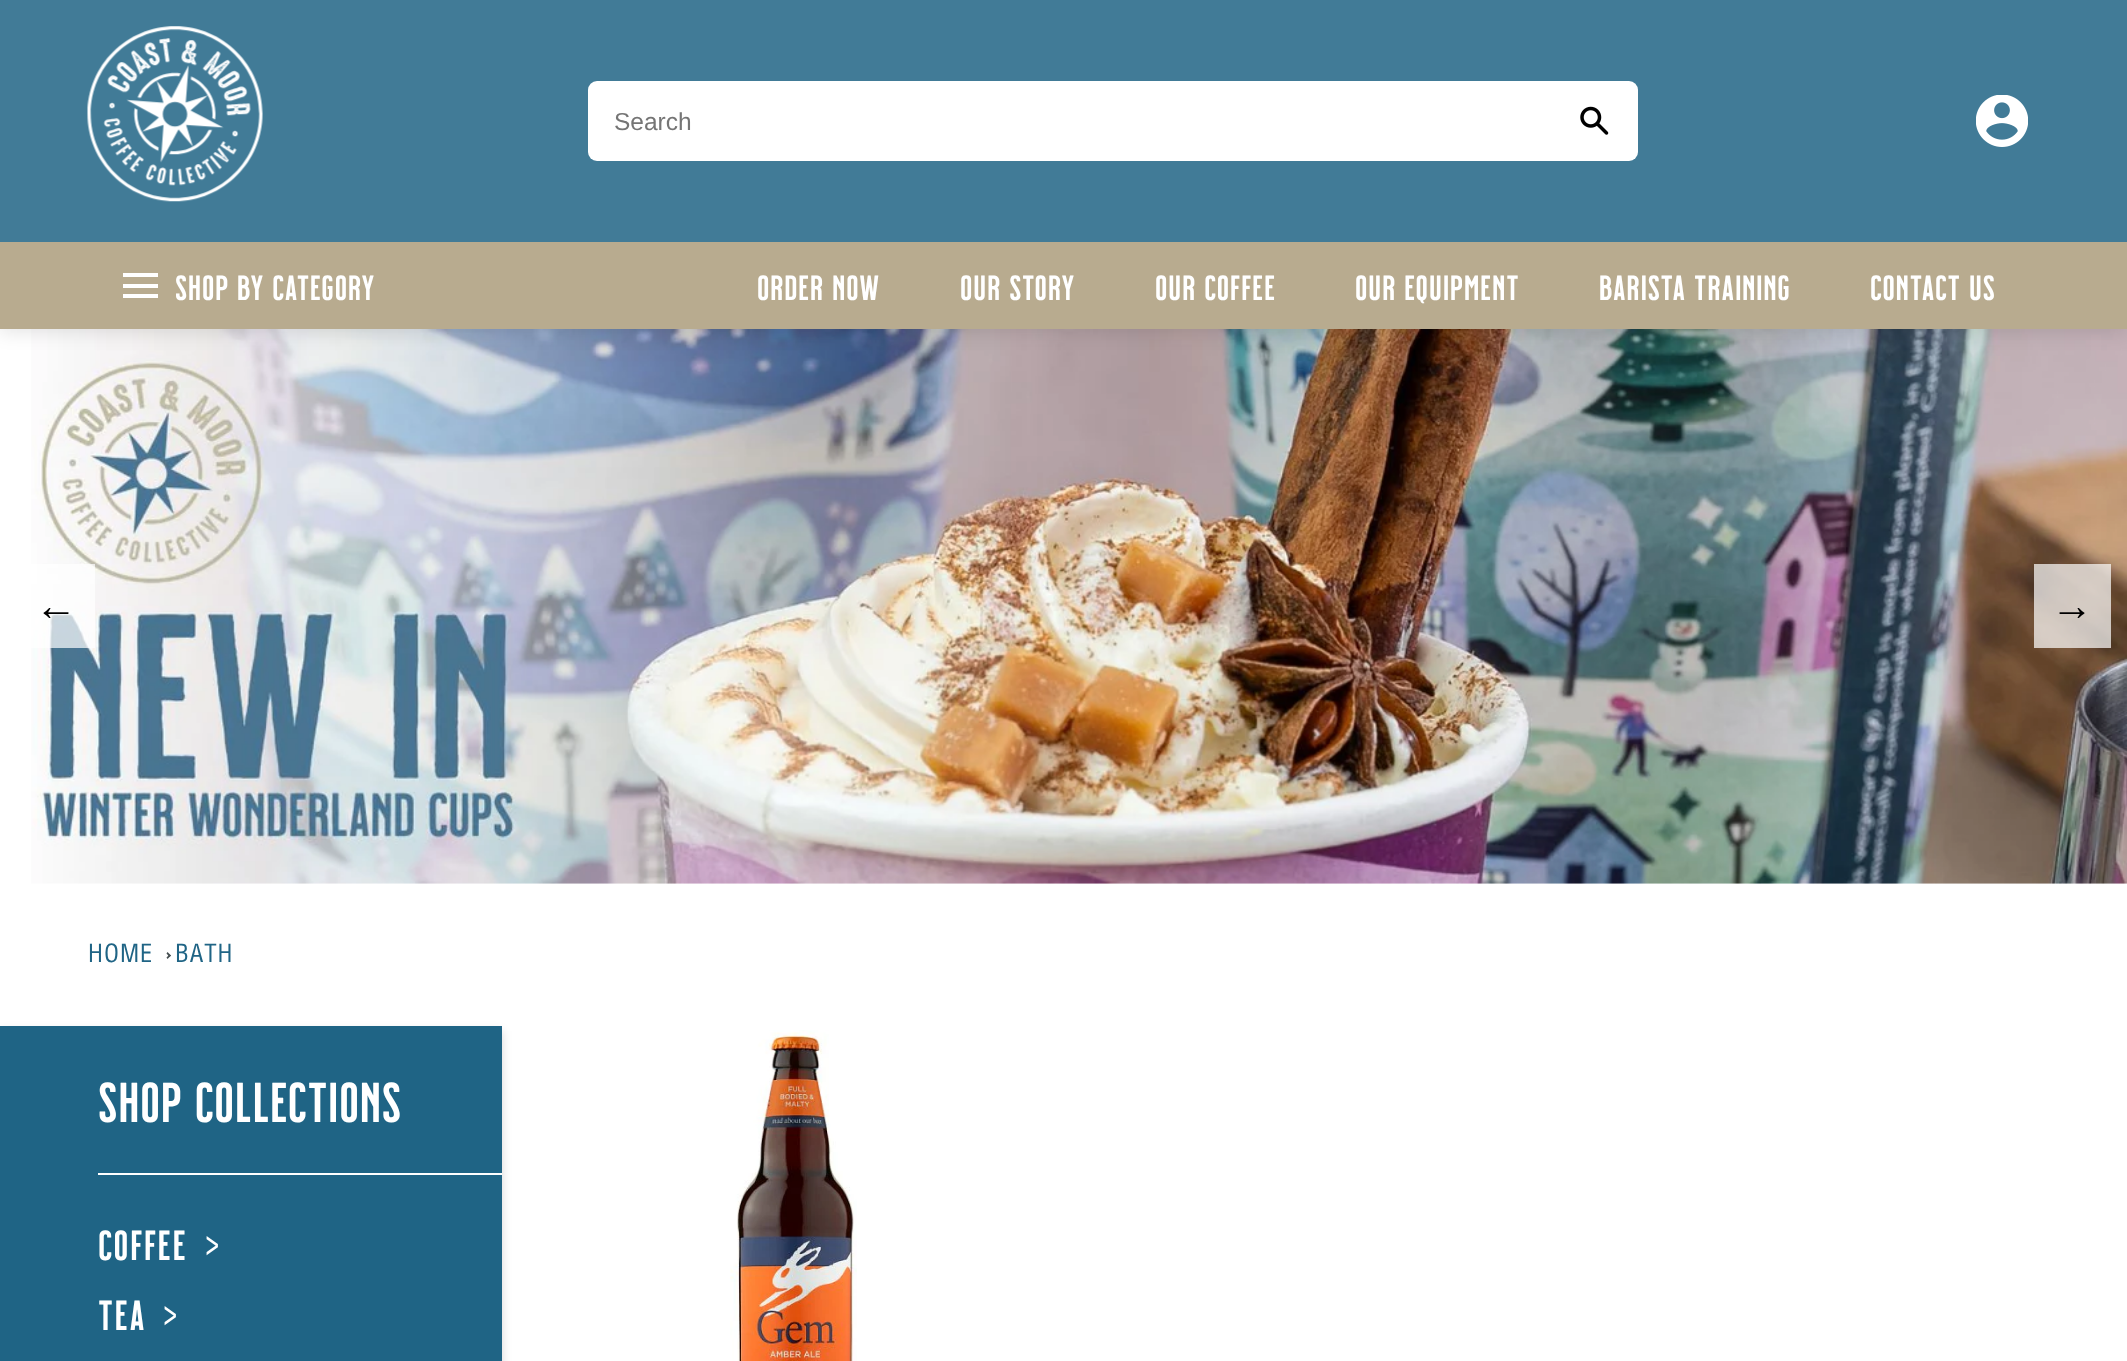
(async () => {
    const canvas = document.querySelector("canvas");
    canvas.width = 2127;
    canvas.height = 1361;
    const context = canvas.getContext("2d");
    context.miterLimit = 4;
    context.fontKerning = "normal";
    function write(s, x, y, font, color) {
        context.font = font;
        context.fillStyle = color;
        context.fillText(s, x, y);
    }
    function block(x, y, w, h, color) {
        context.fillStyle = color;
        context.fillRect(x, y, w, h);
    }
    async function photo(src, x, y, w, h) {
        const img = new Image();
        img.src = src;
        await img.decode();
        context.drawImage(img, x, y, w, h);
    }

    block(0, 0, 2127, 1361, "rgb(255, 255, 255)");
    await photo("media/4.png", 31, 329, 2096, 555);
    context.fillStyle = "rgba(0, 0, 0, 0.1)";
    context.filter = "blur(9px)";
    context.beginPath();
    context.rect(0, 4, 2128, 329);
    context.fill();
    context.filter = "none";
    block(0, 0, 2127, 242, "rgb(65, 123, 151)");
    await photo("media/1.png", 87, 26, 176, 176);
    context.fillStyle = "rgb(255, 255, 255)";
    context.beginPath();
    context.roundRect(588, 81, 963, 80, [9, 0, 0, 9]);
    context.fill();
    write("Search", 614, 130, "24.5px Liberation Sans", "rgb(117, 117, 117)");
    context.fillStyle = "rgb(255, 255, 255)";
    context.beginPath();
    context.roundRect(1551, 81, 87, 80, [0, 9, 9, 0]);
    context.fill();
    await photo("media/2.png", 1580, 106, 29, 29);
    await photo("media/3.png", 1976, 95, 52, 52);
    block(0, 242, 2127, 87, "rgb(184, 171, 143)");
    block(123, 273, 35, 4, "rgb(255, 255, 255)");
    block(123, 284, 35, 4, "rgb(255, 255, 255)");
    block(123, 294, 35, 4, "rgb(255, 255, 255)");
    context.letterSpacing = "0.9px";
    write("Shop by Category", 175, 300, "35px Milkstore", "rgb(255, 255, 255)");
    context.letterSpacing = "1px";
    write("ORDER NOW", 757, 300, "35px Milkstore", "rgb(255, 255, 255)");
    write("OUR STORY", 960, 300, "35px Milkstore", "rgb(255, 255, 255)");
    write("OUR COFFEE", 1155, 300, "35px Milkstore", "rgb(255, 255, 255)");
    write("OUR EQUIPMENT", 1355, 300, "35px Milkstore", "rgb(255, 255, 255)");
    write("BARISTA TRAINING", 1599, 300, "35px Milkstore", "rgb(255, 255, 255)");
    write("CONTACT US", 1870, 300, "35px Milkstore", "rgb(255, 255, 255)");
    block(31, 564, 64, 84, "rgba(255, 255, 255, 0.7)");
    context.letterSpacing = "0px";
    write("←", 35, 620, "42px Liberation Sans", "rgb(0, 0, 0)");
    block(2034, 564, 77, 84, "rgba(255, 255, 255, 0.7)");
    write("→", 2051, 620, "42px Liberation Sans", "rgb(0, 0, 0)");
    context.letterSpacing = "1px";
    write("HOME", 88, 962, "24.5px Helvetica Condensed", "rgb(31, 100, 133)");
    context.fillStyle = "rgb(70, 79, 81)";
    context.beginPath();
    context.moveTo(167.5, 952);
    context.lineTo(171, 955.5);
    context.lineTo(169.5, 957);
    context.lineTo(166.5, 953.5);
    context.closePath();
    context.fill();
    context.beginPath();
    context.moveTo(169.5, 954.5);
    context.lineTo(171, 955.5);
    context.lineTo(167.5, 959);
    context.lineTo(166.5, 957.5);
    context.closePath();
    context.fill();
    write("BATH", 175, 962, "24.5px Helvetica Condensed", "rgb(31, 100, 133)");
    context.fillStyle = "rgba(0, 0, 0, 0.16)";
    context.filter = "blur(5px)";
    context.beginPath();
    context.rect(0, 1031, 502, 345);
    context.fill();
    context.filter = "none";
    block(0, 1026, 502, 335, "rgb(31, 100, 133)");
    block(98, 1173, 404, 2, "rgb(255, 255, 255)");
    write("SHOP COLLECTIONS", 98, 1122, "56px Milkstore", "rgb(255, 255, 255)");
    context.letterSpacing = "1.75px";
    write("COFFEE", 98, 1260, "42px Milkstore", "rgb(255, 255, 255)");
    context.letterSpacing = "1px";
    write(">", 205, 1260, "42px Milkstore", "rgb(255, 255, 255)");
    context.letterSpacing = "1.75px";
    write("TEA", 98, 1330, "42px Milkstore", "rgb(255, 255, 255)");
    context.letterSpacing = "1px";
    write(">", 163, 1330, "42px Milkstore", "rgb(255, 255, 255)");
    await photo("media/5.png", 730, 1030, 127, 331);
})();
